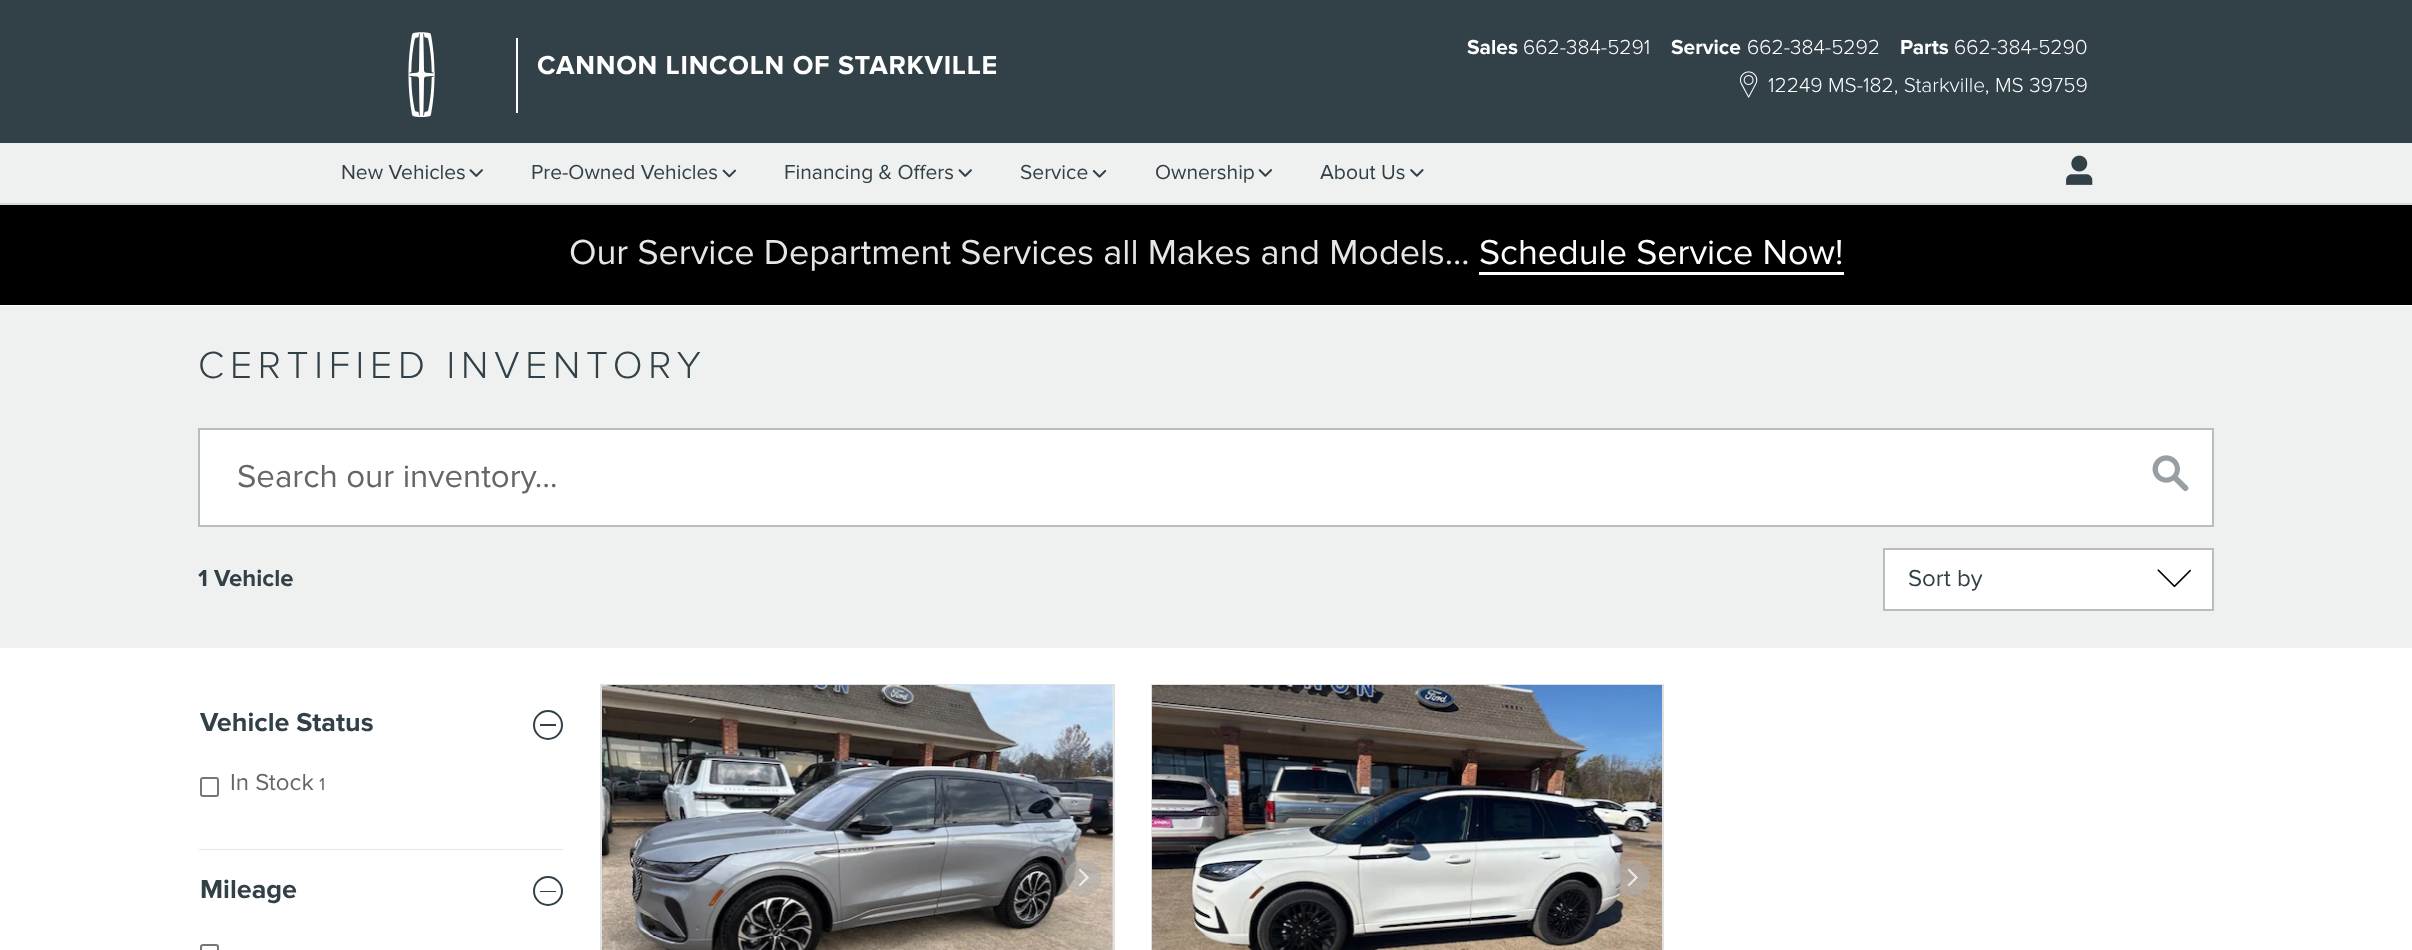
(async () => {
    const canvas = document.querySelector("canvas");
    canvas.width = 2412;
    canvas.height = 950;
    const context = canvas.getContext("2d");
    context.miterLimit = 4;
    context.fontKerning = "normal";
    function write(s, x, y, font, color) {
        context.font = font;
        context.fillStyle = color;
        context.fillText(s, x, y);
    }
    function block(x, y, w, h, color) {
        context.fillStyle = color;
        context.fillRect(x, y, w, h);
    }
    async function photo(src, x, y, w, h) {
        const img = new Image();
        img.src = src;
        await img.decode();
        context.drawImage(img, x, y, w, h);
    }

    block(0, 0, 2412, 950, "rgb(255, 255, 255)");
    block(0, 0, 2412, 143, "rgb(50, 64, 71)");
    await photo("media/1.png", 408, 32, 27, 85);
    block(516, 38, 2, 75, "rgb(255, 255, 255)");
    write("Sales", 1467, 54, "bold 21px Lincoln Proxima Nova", "rgb(255, 255, 255)");
    write("662-384-5291", 1523, 54, "300 21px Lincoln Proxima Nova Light", "rgb(255, 255, 255)");
    write("Service", 1671, 54, "bold 21px Lincoln Proxima Nova", "rgb(255, 255, 255)");
    write("662-384-5292", 1747, 54, "300 21px Lincoln Proxima Nova Light", "rgb(255, 255, 255)");
    write("Parts", 1900, 54, "bold 21px Lincoln Proxima Nova", "rgb(255, 255, 255)");
    write("662-384-5290", 1954, 54, "300 21px Lincoln Proxima Nova Light", "rgb(255, 255, 255)");
    context.letterSpacing = "0.75px";
    write("CANNON LINCOLN OF STARKVILLE", 537, 74, "bold 27px Lincoln Proxima Nova", "rgb(255, 255, 255)");
    await photo("media/2.png", 1740, 71, 18, 27);
    context.letterSpacing = "0px";
    write("12249 MS-182, Starkville, MS 39759", 1768, 92, "300 21px Lincoln Proxima Nova Light", "rgb(255, 255, 255)");
    block(0, 143, 2412, 60, "rgb(239, 240, 240)");
    await photo("media/3.png", 2066, 155, 27, 30);
    block(0, 203, 2412, 2, "rgb(216, 219, 220)");
    write("New Vehicles", 341, 179, "21px Lincoln Proxima Nova", "rgb(50, 64, 71)");
    await photo("media/4.png", 469, 169, 14, 8);
    write("Pre-Owned Vehicles", 531, 179, "21px Lincoln Proxima Nova", "rgb(50, 64, 71)");
    await photo("media/5.png", 722, 169, 14, 9);
    write("Financing & Offers", 784, 179, "21px Lincoln Proxima Nova", "rgb(50, 64, 71)");
    await photo("media/6.png", 958, 169, 14, 8);
    write("Service", 1020, 179, "21px Lincoln Proxima Nova", "rgb(50, 64, 71)");
    await photo("media/7.png", 1092, 170, 15, 8);
    write("Ownership", 1155, 179, "21px Lincoln Proxima Nova", "rgb(50, 64, 71)");
    await photo("media/8.png", 1258, 169, 14, 8);
    write("About Us", 1320, 179, "21px Lincoln Proxima Nova", "rgb(50, 64, 71)");
    await photo("media/9.png", 1410, 169, 14, 8);
    block(0, 205, 2412, 100, "rgb(0, 0, 0)");
    write("Our Service Department Services all Makes and Models...", 569, 264, "36px Lincoln Proxima Nova", "rgb(230, 230, 230)");
    write("Schedule Service Now!", 1479, 264, "36px Lincoln Proxima Nova", "rgb(255, 255, 255)");
    block(1479, 272, 365, 3, "rgb(255, 255, 255)");
    block(0, 306, 2412, 342, "rgb(239, 240, 240)");
    context.letterSpacing = "5.8px";
    write("CERTIFIED INVENTORY", 198, 378, "300 39px Lincoln Proxima Nova Light", "rgb(50, 64, 71)");
    context.fillStyle = "rgb(255, 255, 255)";
    context.beginPath();
    context.rect(199, 429, 2014, 97);
    context.fill();
    context.strokeStyle = "rgb(184, 189, 192)";
    context.lineWidth = 2;
    context.stroke();
    context.letterSpacing = "0px";
    write("Search our inventory…", 237, 487, "33px Lincoln Proxima Nova", "rgb(102, 102, 102)");
    await photo("media/10.png", 2152, 455, 37, 37);
    write("1 Vehicle", 198, 586, "bold 24px Lincoln Proxima Nova", "rgb(50, 64, 71)");
    block(1885, 550, 327, 59, "rgb(255, 255, 255)");
    await photo("media/11.png", 2157, 569, 34, 19);
    context.strokeRect(1884, 549, 329, 61);
    write("Sort by", 1908, 586, "24px Lincoln Proxima Nova", "rgb(50, 64, 71)");
    context.fillStyle = "rgb(230, 230, 230)";
    context.beginPath();
    context.moveTo(564, 850);
    context.lineTo(198, 850);
    context.lineTo(200, 849);
    context.lineTo(562, 849);
    context.closePath();
    context.fill();
    write("Vehicle Status", 200, 731, "bold 27px Lincoln Proxima Nova", "rgb(50, 64, 71)");
    context.beginPath();
    context.arc(548, 725, 14, 0, Math.PI * 2);
    context.strokeStyle = "rgb(50, 64, 71)";
    context.stroke();
    block(540, 724, 16, 2, "rgb(50, 64, 71)");
    context.beginPath();
    context.roundRect(201, 778, 17, 18, 2);
    context.strokeStyle = "rgb(118, 118, 118)";
    context.stroke();
    write("In Stock", 230, 790, "24px Lincoln Proxima Nova", "rgb(102, 102, 102)");
    write("1", 319, 790, "18px Lincoln Proxima Nova", "rgb(102, 102, 102)");
    write("Mileage", 200, 898, "bold 27px Lincoln Proxima Nova", "rgb(50, 64, 71)");
    context.beginPath();
    context.arc(548, 891, 14, 0, Math.PI * 2);
    context.strokeStyle = "rgb(50, 64, 71)";
    context.stroke();
    block(540, 891, 16, 1, "rgb(50, 64, 71)");
    context.beginPath();
    context.roundRect(201, 945, 17, 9, 2);
    context.strokeStyle = "rgb(118, 118, 118)";
    context.stroke();
    context.strokeStyle = "rgb(224, 224, 224)";
    context.strokeRect(601, 685, 513, 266);
    await photo("media/12.png", 602, 685, 511, 265);
    await photo("media/13.png", 1065, 860, 36, 36);
    context.strokeRect(1152, 685, 511, 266);
    await photo("media/14.png", 1152, 685, 510, 265);
    await photo("media/15.png", 1614, 860, 36, 36);
})();
